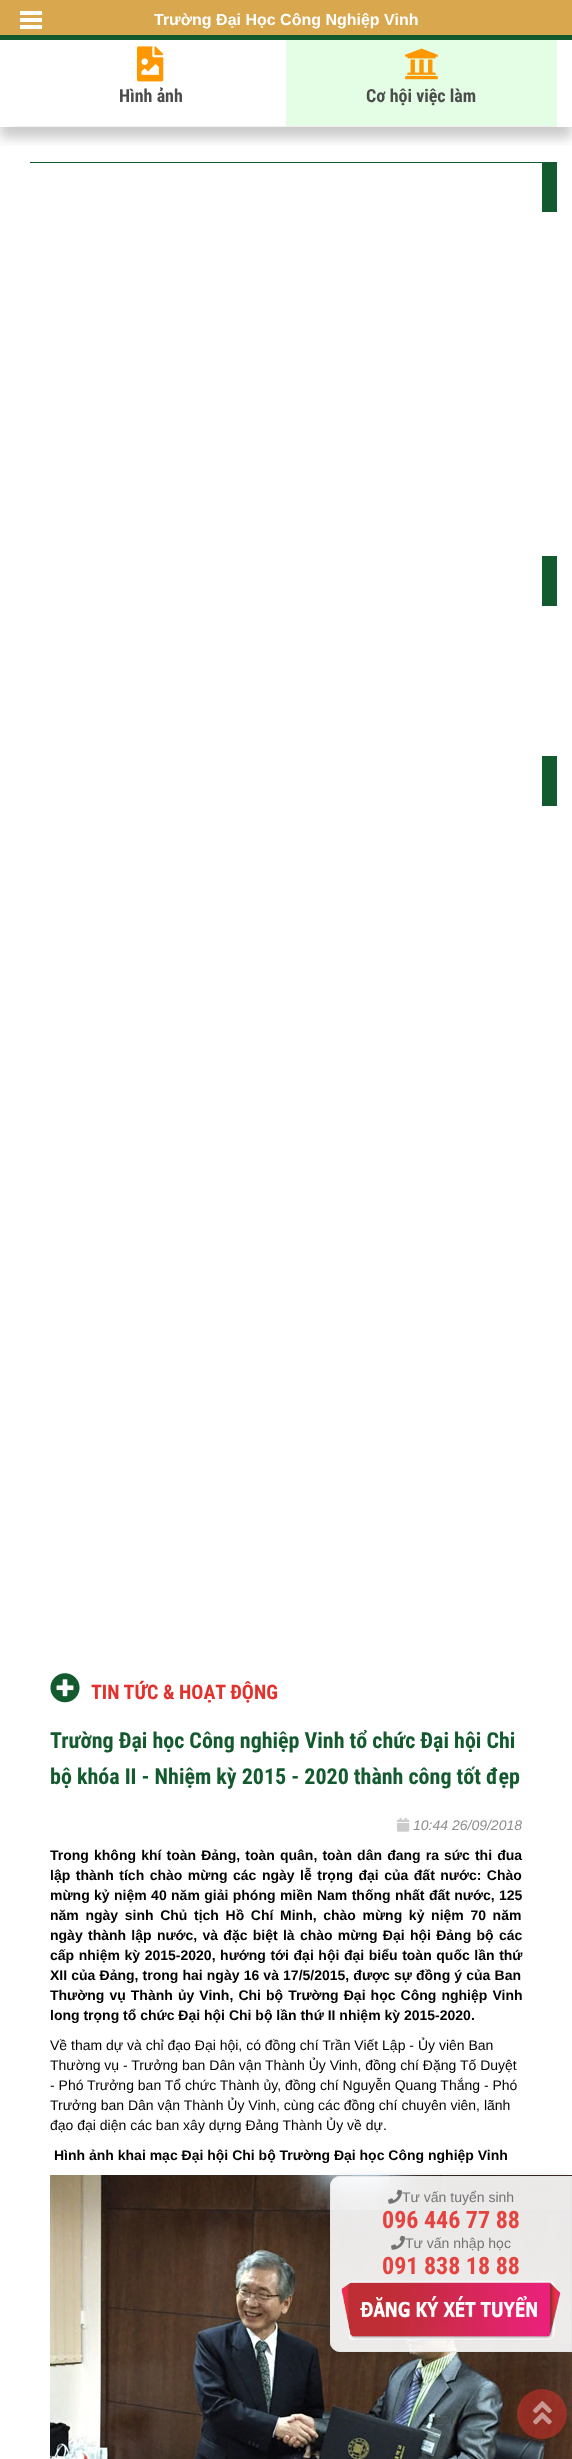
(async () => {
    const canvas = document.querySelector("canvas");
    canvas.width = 572;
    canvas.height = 2459;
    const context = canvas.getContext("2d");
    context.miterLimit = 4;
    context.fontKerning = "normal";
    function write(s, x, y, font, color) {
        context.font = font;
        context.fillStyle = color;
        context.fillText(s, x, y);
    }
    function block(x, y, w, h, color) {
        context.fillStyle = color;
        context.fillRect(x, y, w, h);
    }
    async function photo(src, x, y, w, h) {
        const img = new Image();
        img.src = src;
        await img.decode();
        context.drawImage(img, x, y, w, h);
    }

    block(0, 0, 572, 2459, "rgb(255, 255, 255)");
    context.save();
    context.beginPath();
    context.rect(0, 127, 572, 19);
    context.clip();
    context.fillStyle = "rgba(0, 0, 0, 0.2)";
    context.filter = "blur(6px)";
    context.beginPath();
    context.rect(0, -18, 572, 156);
    context.fill();
    context.filter = "none";
    context.restore();
    block(0, 0, 572, 35, "rgb(217, 167, 77)");
    block(0, 35, 572, 5, "rgb(19, 90, 46)");
    await photo("media/1.png", 20, 11, 22, 18);
    write("Trường Đại Học Công Nghiệp Vinh", 154, 25, "bold 16px Liberation Sans", "rgb(255, 255, 255)");
    block(15, 126, 542, 1, "rgb(239, 239, 239)");
    await photo("media/2.png", 137, 46, 27, 36);
    write("Hình ảnh", 119, 102, "bold 18px Roboto Condensed", "rgb(76, 76, 76)");
    block(286, 40, 271, 86, "rgb(227, 254, 228)");
    await photo("media/3.png", 405, 48, 33, 32);
    write("Cơ hội việc làm", 366, 102, "bold 18px Roboto Condensed", "rgb(76, 76, 76)");
    block(30, 162, 527, 50, "rgb(19, 90, 46)");
    block(542, 556, 15, 50, "rgb(19, 90, 46)");
    block(542, 756, 15, 50, "rgb(19, 90, 46)");
    block(30, 163, 512, 49, "rgb(255, 255, 255)");
    await photo("media/4.png", 50, 1673, 30, 30);
    write("TIN TỨC & HOẠT ĐỘNG", 91, 1699, "bold 20px Roboto Condensed", "rgb(228, 49, 44)");
    write("Trường Đại học Công nghiệp Vinh tổ chức Đại hội Chi", 50, 1748, "bold 22px Roboto Condensed", "rgb(19, 90, 46)");
    write("bộ khóa II - Nhiệm kỳ 2015 - 2020 thành công tốt đẹp", 50, 1784, "bold 22px Roboto Condensed", "rgb(19, 90, 46)");
    await photo("media/5.png", 397, 1817, 13, 15);
    write("10:44 26/09/2018", 413, 1830, "italic 14px Liberation Sans", "rgb(142, 143, 140)");
    context.wordSpacing = "1.25px";
    write("Trong không khí toàn Đảng, toàn quân, toàn dân đang ra sức thi đua", 50, 1860, "bold 14px Liberation Sans", "rgb(0, 0, 0)");
    context.wordSpacing = "1.6px";
    write("lập thành tích chào mừng các ngày lễ trọng đại của đất nước: Chào", 50, 1880, "bold 14px Liberation Sans", "rgb(0, 0, 0)");
    context.wordSpacing = "0.5px";
    write("mừng kỷ niệm 40 năm giải phóng miền Nam thống nhất đất nước, 125", 50, 1900, "bold 14px Liberation Sans", "rgb(0, 0, 0)");
    context.wordSpacing = "2.75px";
    write("năm ngày sinh Chủ tịch Hồ Chí Minh, chào mừng kỷ niệm 70 năm", 50, 1920, "bold 14px Liberation Sans", "rgb(0, 0, 0)");
    context.wordSpacing = "1.4px";
    write("ngày thành lập nước, và đặc biệt là chào mừng Đại hội Đảng bộ các", 50, 1940, "bold 14px Liberation Sans", "rgb(0, 0, 0)");
    context.wordSpacing = "0.7px";
    write("cấp nhiệm kỳ 2015-2020, hướng tới đại hội đại biểu toàn quốc lần thứ", 50, 1960, "bold 14px Liberation Sans", "rgb(0, 0, 0)");
    context.wordSpacing = "0.25px";
    write("XII của Đảng, trong hai ngày 16 và 17/5/2015, được sự đồng ý của Ban", 50, 1980, "bold 14px Liberation Sans", "rgb(0, 0, 0)");
    context.wordSpacing = "1.2px";
    write("Thường vụ Thành ủy Vinh, Chi bộ Trường Đại học Công nghiệp Vinh", 50, 2000, "bold 14px Liberation Sans", "rgb(0, 0, 0)");
    context.wordSpacing = "0px";
    write("long trọng tổ chức Đại hội Chi bộ lần thứ II nhiệm kỳ 2015-2020.", 50, 2020, "bold 14px Liberation Sans", "rgb(0, 0, 0)");
    write("Về tham dự và chỉ đạo Đại hội, có đồng chí Trần Viết Lập - Ủy viên Ban", 50, 2050, "14px Liberation Sans", "rgb(0, 0, 0)");
    write("Thường vụ - Trưởng ban Dân vận Thành Ủy Vinh, đồng chí Đặng Tố Duyệt", 50, 2070, "14px Liberation Sans", "rgb(0, 0, 0)");
    write("- Phó Trưởng ban Tổ chức Thành ủy, đồng chí Nguyễn Quang Thắng - Phó", 50, 2090, "14px Liberation Sans", "rgb(0, 0, 0)");
    write("Trưởng ban Dân vận Thành Ủy Vinh, cùng các đồng chí chuyên viên, lãnh", 50, 2110, "14px Liberation Sans", "rgb(0, 0, 0)");
    write("đạo đại diện các ban xây dựng Đảng Thành Ủy về dự.", 50, 2130, "14px Liberation Sans", "rgb(0, 0, 0)");
    write("Hình ảnh khai mạc Đại hội Chi bộ Trường Đại học Công nghiệp Vinh", 54, 2160, "bold 14px Liberation Sans", "rgb(0, 0, 0)");
    await photo("media/6.png", 50, 2175, 522, 284);
    context.save();
    context.beginPath();
    context.moveTo(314, 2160);
    context.lineTo(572, 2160);
    context.lineTo(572, 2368);
    context.lineTo(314, 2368);
    context.closePath();
    context.moveTo(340, 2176);
    context.lineTo(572, 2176);
    context.lineTo(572, 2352);
    context.lineTo(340, 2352);
    context.bezierCurveTo(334.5, 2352, 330, 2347.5, 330, 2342);
    context.lineTo(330, 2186);
    context.bezierCurveTo(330, 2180.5, 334.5, 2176, 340, 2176);
    context.closePath();
    context.clip("evenodd");
    context.fillStyle = "rgba(0, 0, 0, 0.09)";
    context.filter = "blur(5px)";
    context.beginPath();
    context.roundRect(330, 2176, 242, 176, 10);
    context.fill();
    context.filter = "none";
    context.restore();
    context.fillStyle = "rgba(255, 255, 255, 0.9)";
    context.beginPath();
    context.roundRect(330, 2176, 242, 176, [10, 0, 0, 10]);
    context.fill();
    context.beginPath();
    context.roundRect(330.5, 2176.5, 241, 175, [9.5, 0, 0, 9.5]);
    context.strokeStyle = "rgba(230, 230, 230, 0.9)";
    context.stroke();
    await photo("media/7.png", 388, 2189, 14, 15);
    write("Tư vấn tuyển sinh", 402, 2202, "14px Liberation Sans", "rgb(115, 115, 115)");
    write("096 446 77 88", 382, 2228, "bold 24px Roboto Condensed", "rgb(229, 67, 63)");
    await photo("media/8.png", 391, 2235, 14, 15);
    write("Tư vấn nhập học", 405, 2248, "14px Liberation Sans", "rgb(115, 115, 115)");
    write("091 838 18 88", 382, 2274, "bold 24px Roboto Condensed", "rgb(229, 67, 63)");
    await photo("media/9.png", 341, 2280, 220, 61);
    context.fillStyle = "rgba(228, 49, 44, 0.5)";
    context.beginPath();
    context.arc(542, 2414, 25, 0, Math.PI * 2);
    context.fill();
    await photo("media/10.png", 533, 2401, 19, 24);
})();
